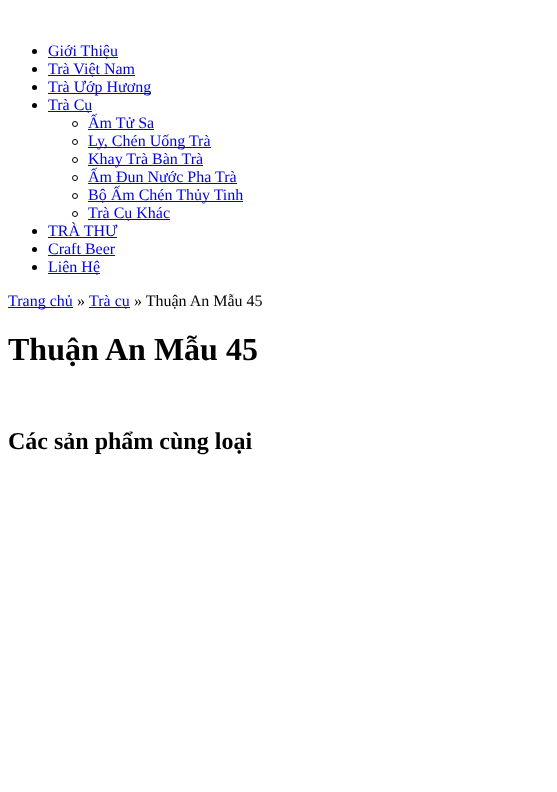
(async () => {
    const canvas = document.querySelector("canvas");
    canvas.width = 557;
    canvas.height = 792;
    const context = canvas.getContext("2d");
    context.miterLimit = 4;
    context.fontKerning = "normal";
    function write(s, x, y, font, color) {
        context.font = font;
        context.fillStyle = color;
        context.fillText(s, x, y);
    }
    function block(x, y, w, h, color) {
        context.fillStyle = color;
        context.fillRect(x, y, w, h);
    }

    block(0, 0, 557, 792, "rgb(255, 255, 255)");
    context.fillStyle = "rgb(0, 0, 0)";
    context.beginPath();
    context.arc(34.5, 51.5, 2.5, 0, Math.PI * 2);
    context.fill();
    block(48, 57, 70, 1, "rgb(0, 0, 238)");
    write("Giới Thiệu", 48, 56, "16px Liberation Serif", "rgb(0, 0, 238)");
    context.fillStyle = "rgb(0, 0, 0)";
    context.beginPath();
    context.arc(34.5, 69.5, 2.5, 0, Math.PI * 2);
    context.fill();
    block(48, 75, 87, 1, "rgb(0, 0, 238)");
    write("Trà Việt Nam", 48, 74, "16px Liberation Serif", "rgb(0, 0, 238)");
    context.fillStyle = "rgb(0, 0, 0)";
    context.beginPath();
    context.arc(34.5, 87.5, 2.5, 0, Math.PI * 2);
    context.fill();
    block(48, 93, 103, 1, "rgb(0, 0, 238)");
    write("Trà Ướp Hương", 48, 92, "16px Liberation Serif", "rgb(0, 0, 238)");
    context.fillStyle = "rgb(0, 0, 0)";
    context.beginPath();
    context.arc(34.5, 105.5, 2.5, 0, Math.PI * 2);
    context.fill();
    block(48, 111, 44, 1, "rgb(0, 0, 238)");
    write("Trà Cụ", 48, 110, "16px Liberation Serif", "rgb(0, 0, 238)");
    context.beginPath();
    context.arc(75, 124, 2.5, 0, Math.PI * 2);
    context.strokeStyle = "rgb(0, 0, 0)";
    context.stroke();
    write("Ấm Tử Sa", 88, 128, "16px Liberation Serif", "rgb(0, 0, 238)");
    block(88, 129, 66, 1, "rgb(0, 0, 238)");
    context.beginPath();
    context.arc(75, 142, 2.5, 0, Math.PI * 2);
    context.stroke();
    block(88, 147, 123, 1, "rgb(0, 0, 238)");
    write("Ly, Chén Uống Trà", 88, 146, "16px Liberation Serif", "rgb(0, 0, 238)");
    context.beginPath();
    context.arc(75, 160, 2.5, 0, Math.PI * 2);
    context.stroke();
    block(88, 165, 115, 1, "rgb(0, 0, 238)");
    write("Khay Trà Bàn Trà", 88, 164, "16px Liberation Serif", "rgb(0, 0, 238)");
    context.beginPath();
    context.arc(75, 178, 2.5, 0, Math.PI * 2);
    context.stroke();
    write("Ấm Đun Nước Pha Trà", 88, 182, "16px Liberation Serif", "rgb(0, 0, 238)");
    block(88, 183, 149, 1, "rgb(0, 0, 238)");
    context.beginPath();
    context.arc(75, 196, 2.5, 0, Math.PI * 2);
    context.stroke();
    block(88, 201, 155, 1, "rgb(0, 0, 238)");
    write("Bộ Ấm Chén Thủy Tinh", 88, 200, "16px Liberation Serif", "rgb(0, 0, 238)");
    context.beginPath();
    context.arc(75, 214, 2.5, 0, Math.PI * 2);
    context.stroke();
    block(88, 219, 82, 1, "rgb(0, 0, 238)");
    write("Trà Cụ Khác", 88, 218, "16px Liberation Serif", "rgb(0, 0, 238)");
    context.fillStyle = "rgb(0, 0, 0)";
    context.beginPath();
    context.arc(34.5, 231.5, 2.5, 0, Math.PI * 2);
    context.fill();
    write("TRÀ THƯ", 48, 236, "16px Liberation Serif", "rgb(0, 0, 238)");
    block(48, 237, 69, 1, "rgb(0, 0, 238)");
    context.fillStyle = "rgb(0, 0, 0)";
    context.beginPath();
    context.arc(34.5, 249.5, 2.5, 0, Math.PI * 2);
    context.fill();
    write("Craft Beer", 48, 254, "16px Liberation Serif", "rgb(0, 0, 238)");
    block(48, 255, 67, 1, "rgb(0, 0, 238)");
    context.fillStyle = "rgb(0, 0, 0)";
    context.beginPath();
    context.arc(34.5, 267.5, 2.5, 0, Math.PI * 2);
    context.fill();
    block(48, 273, 52, 1, "rgb(0, 0, 238)");
    write("Liên Hệ", 48, 272, "16px Liberation Serif", "rgb(0, 0, 238)");
    block(8, 307, 65, 1, "rgb(0, 0, 238)");
    write("Trang chủ", 8, 306, "16px Liberation Serif", "rgb(0, 0, 238)");
    write("»", 77, 306, "16px Liberation Serif", "rgb(0, 0, 0)");
    block(89, 307, 41, 1, "rgb(0, 0, 238)");
    write("Trà cụ", 89, 306, "16px Liberation Serif", "rgb(0, 0, 238)");
    write("» Thuận An Mẫu 45", 134, 306, "16px Liberation Serif", "rgb(0, 0, 0)");
    write("Thuận An Mẫu 45", 8, 360, "bold 32px Liberation Serif", "rgb(0, 0, 0)");
    write("Các sản phẩm cùng loại", 8, 449, "bold 24px Liberation Serif", "rgb(0, 0, 0)");
})();
